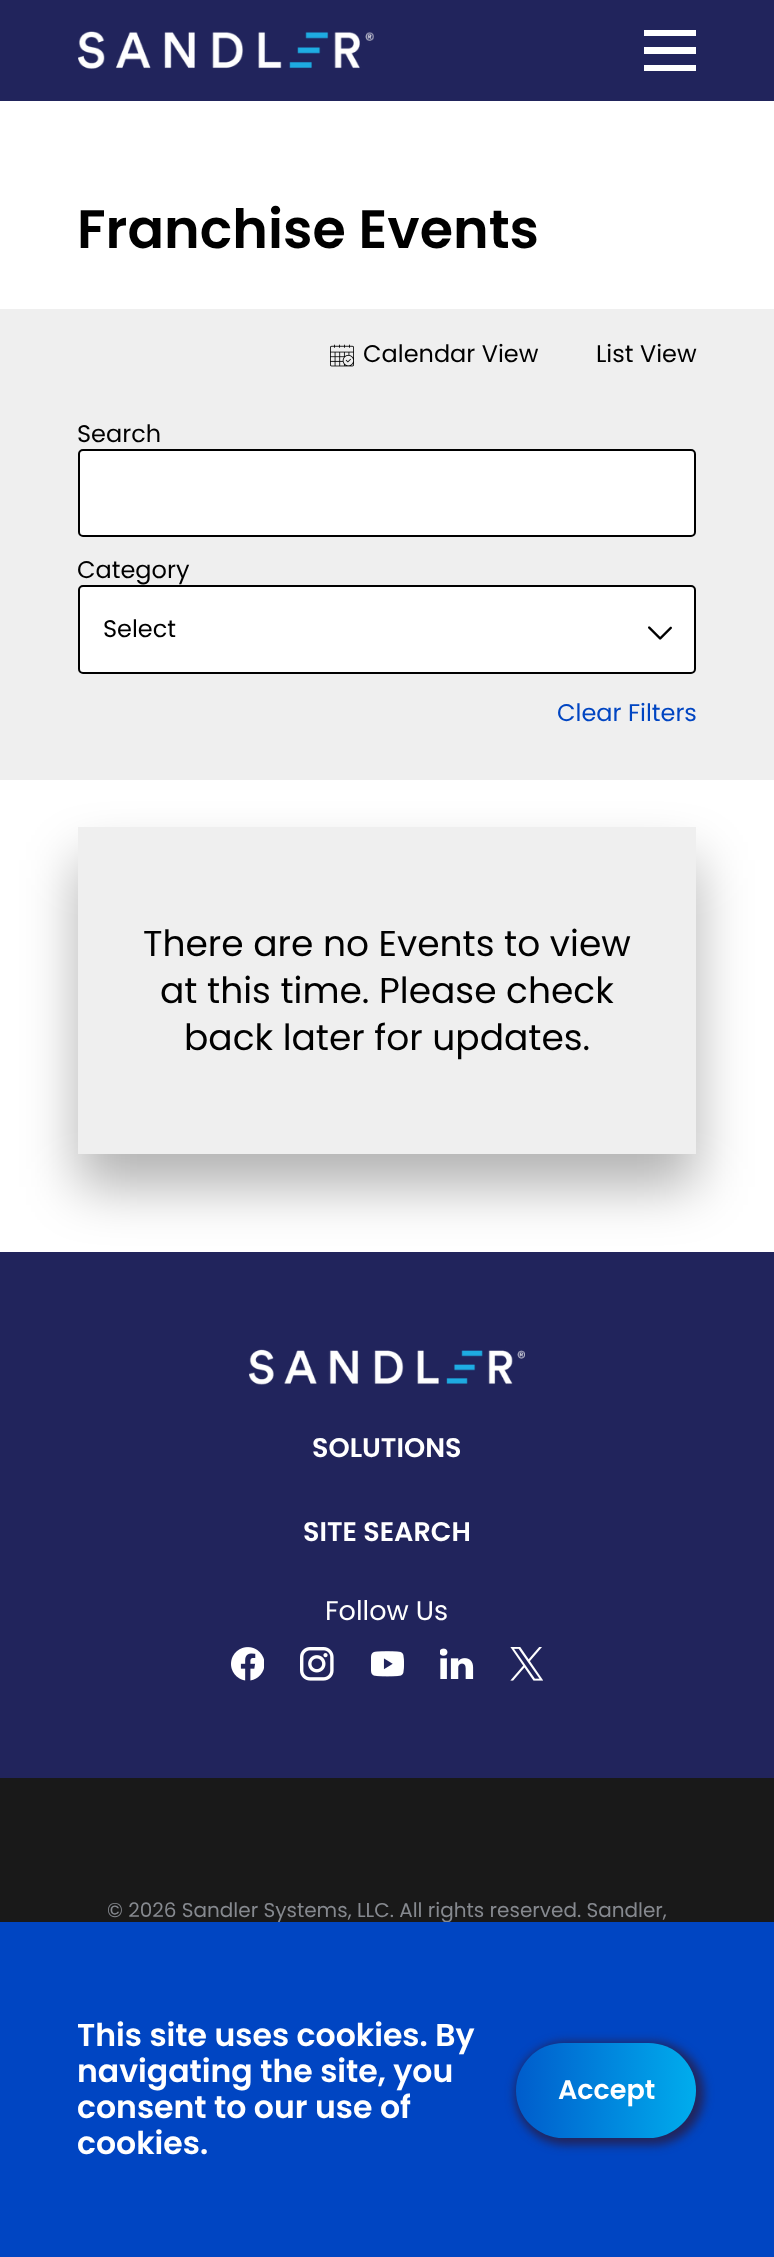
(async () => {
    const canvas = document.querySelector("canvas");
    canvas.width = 774;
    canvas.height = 2257;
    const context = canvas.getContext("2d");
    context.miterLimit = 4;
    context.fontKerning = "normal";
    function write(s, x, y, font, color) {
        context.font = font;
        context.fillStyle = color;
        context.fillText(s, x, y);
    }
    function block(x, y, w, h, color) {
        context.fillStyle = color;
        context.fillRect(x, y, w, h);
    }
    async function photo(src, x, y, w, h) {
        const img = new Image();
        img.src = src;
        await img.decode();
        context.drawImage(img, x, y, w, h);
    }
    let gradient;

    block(0, 0, 774, 2257, "rgb(255, 255, 255)");
    block(0, 0, 774, 101, "rgb(33, 36, 92)");
    await photo("media/1.png", 78, 31, 296, 38);
    context.fillStyle = "rgb(255, 255, 255)";
    context.beginPath();
    context.moveTo(644, 30);
    context.lineTo(644, 36);
    context.lineTo(696, 36);
    context.lineTo(696, 30);
    context.closePath();
    context.moveTo(644, 47);
    context.lineTo(644, 54);
    context.lineTo(696, 54);
    context.lineTo(696, 47);
    context.closePath();
    context.moveTo(644, 65);
    context.lineTo(644, 71);
    context.lineTo(696, 71);
    context.lineTo(696, 65);
    context.closePath();
    context.fill();
    write("Franchise Events", 77, 248, "600 54px Poppins", "rgb(0, 0, 0)");
    block(0, 309, 774, 471, "rgb(239, 239, 239)");
    await photo("media/2.png", 330, 344, 24, 23);
    write("Calendar View", 363, 362, "24px Poppins", "rgb(0, 0, 0)");
    write("List View", 596, 362, "24px Poppins", "rgb(0, 0, 0)");
    write("Search", 77, 442, "24px Poppins", "rgb(0, 0, 0)");
    context.fillStyle = "rgb(255, 255, 255)";
    context.beginPath();
    context.roundRect(79, 450, 616, 86, 4);
    context.fill();
    context.strokeStyle = "rgb(0, 0, 0)";
    context.lineWidth = 2;
    context.stroke();
    write("Category", 77, 578, "24px Poppins", "rgb(0, 0, 0)");
    context.fillStyle = "rgb(255, 255, 255)";
    context.beginPath();
    context.roundRect(79, 586, 616, 87, 4);
    context.fill();
    context.stroke();
    write("Select", 103, 637, "24px Poppins", "rgb(0, 0, 0)");
    await photo("media/3.png", 648, 626, 24, 14);
    write("Clear Filters", 557, 721, "24px Poppins", "rgb(0, 69, 194)");
    block(0, 1252, 774, 526, "rgb(33, 36, 92)");
    context.fillStyle = "rgba(0, 0, 0, 0.3)";
    context.filter = "blur(27px)";
    context.beginPath();
    context.rect(78, 860, 618, 327);
    context.fill();
    context.filter = "none";
    block(78, 827, 618, 327, "rgb(239, 239, 239)");
    write("There are no Events to view", 143, 956, "36px Poppins", "rgb(0, 0, 0)");
    write("at this time. Please check", 160, 1003, "36px Poppins", "rgb(0, 0, 0)");
    write("back later for updates.", 184, 1050, "36px Poppins", "rgb(0, 0, 0)");
    block(0, 1778, 774, 144, "rgb(25, 25, 25)");
    write("© 2026 Sandler Systems, LLC. All rights reserved. Sandler,", 107, 1917, "20px Poppins", "rgb(134, 137, 143)");
    block(0, 1922, 774, 335, "rgb(0, 69, 194)");
    write("This site uses cookies. By", 77, 2046, "600 31.5px Poppins", "rgb(255, 255, 255)");
    write("navigating the site, you", 77, 2082, "600 31.5px Poppins", "rgb(255, 255, 255)");
    write("consent to our use of", 77, 2118, "600 31.5px Poppins", "rgb(255, 255, 255)");
    write("cookies.", 77, 2154, "600 31.5px Poppins", "rgb(255, 255, 255)");
    context.fillStyle = "rgb(33, 36, 92)";
    context.filter = "blur(5px)";
    context.beginPath();
    context.roundRect(515, 2042, 189, 103, 51.5);
    context.fill();
    context.filter = "none";
    gradient = context.createLinearGradient(696, 2090, 464, 2090);
    gradient.addColorStop(0, "rgb(0, 173, 237)");
    gradient.addColorStop(1, "rgb(0, 69, 194)");
    context.fillStyle = gradient;
    context.beginPath();
    context.roundRect(516, 2043, 180, 95, 47.5);
    context.fill();
    write("Accept", 558, 2099, "600 27px Poppins", "rgb(255, 255, 255)");
    await photo("media/4.png", 249, 1349, 276, 36);
    write("SOLUTIONS", 312, 1457, "600 27px Poppins", "rgb(255, 255, 255)");
    write("SITE SEARCH", 303, 1541, "600 27px Poppins", "rgb(255, 255, 255)");
    write("Follow Us", 325, 1620, "27px Poppins", "rgb(255, 255, 255)");
    await photo("media/5.png", 231, 1647, 33, 34);
    await photo("media/6.png", 300, 1647, 34, 34);
    await photo("media/7.png", 371, 1651, 33, 26);
    await photo("media/8.png", 440, 1648, 34, 31);
    await photo("media/9.png", 510, 1647, 33, 34);
})();
